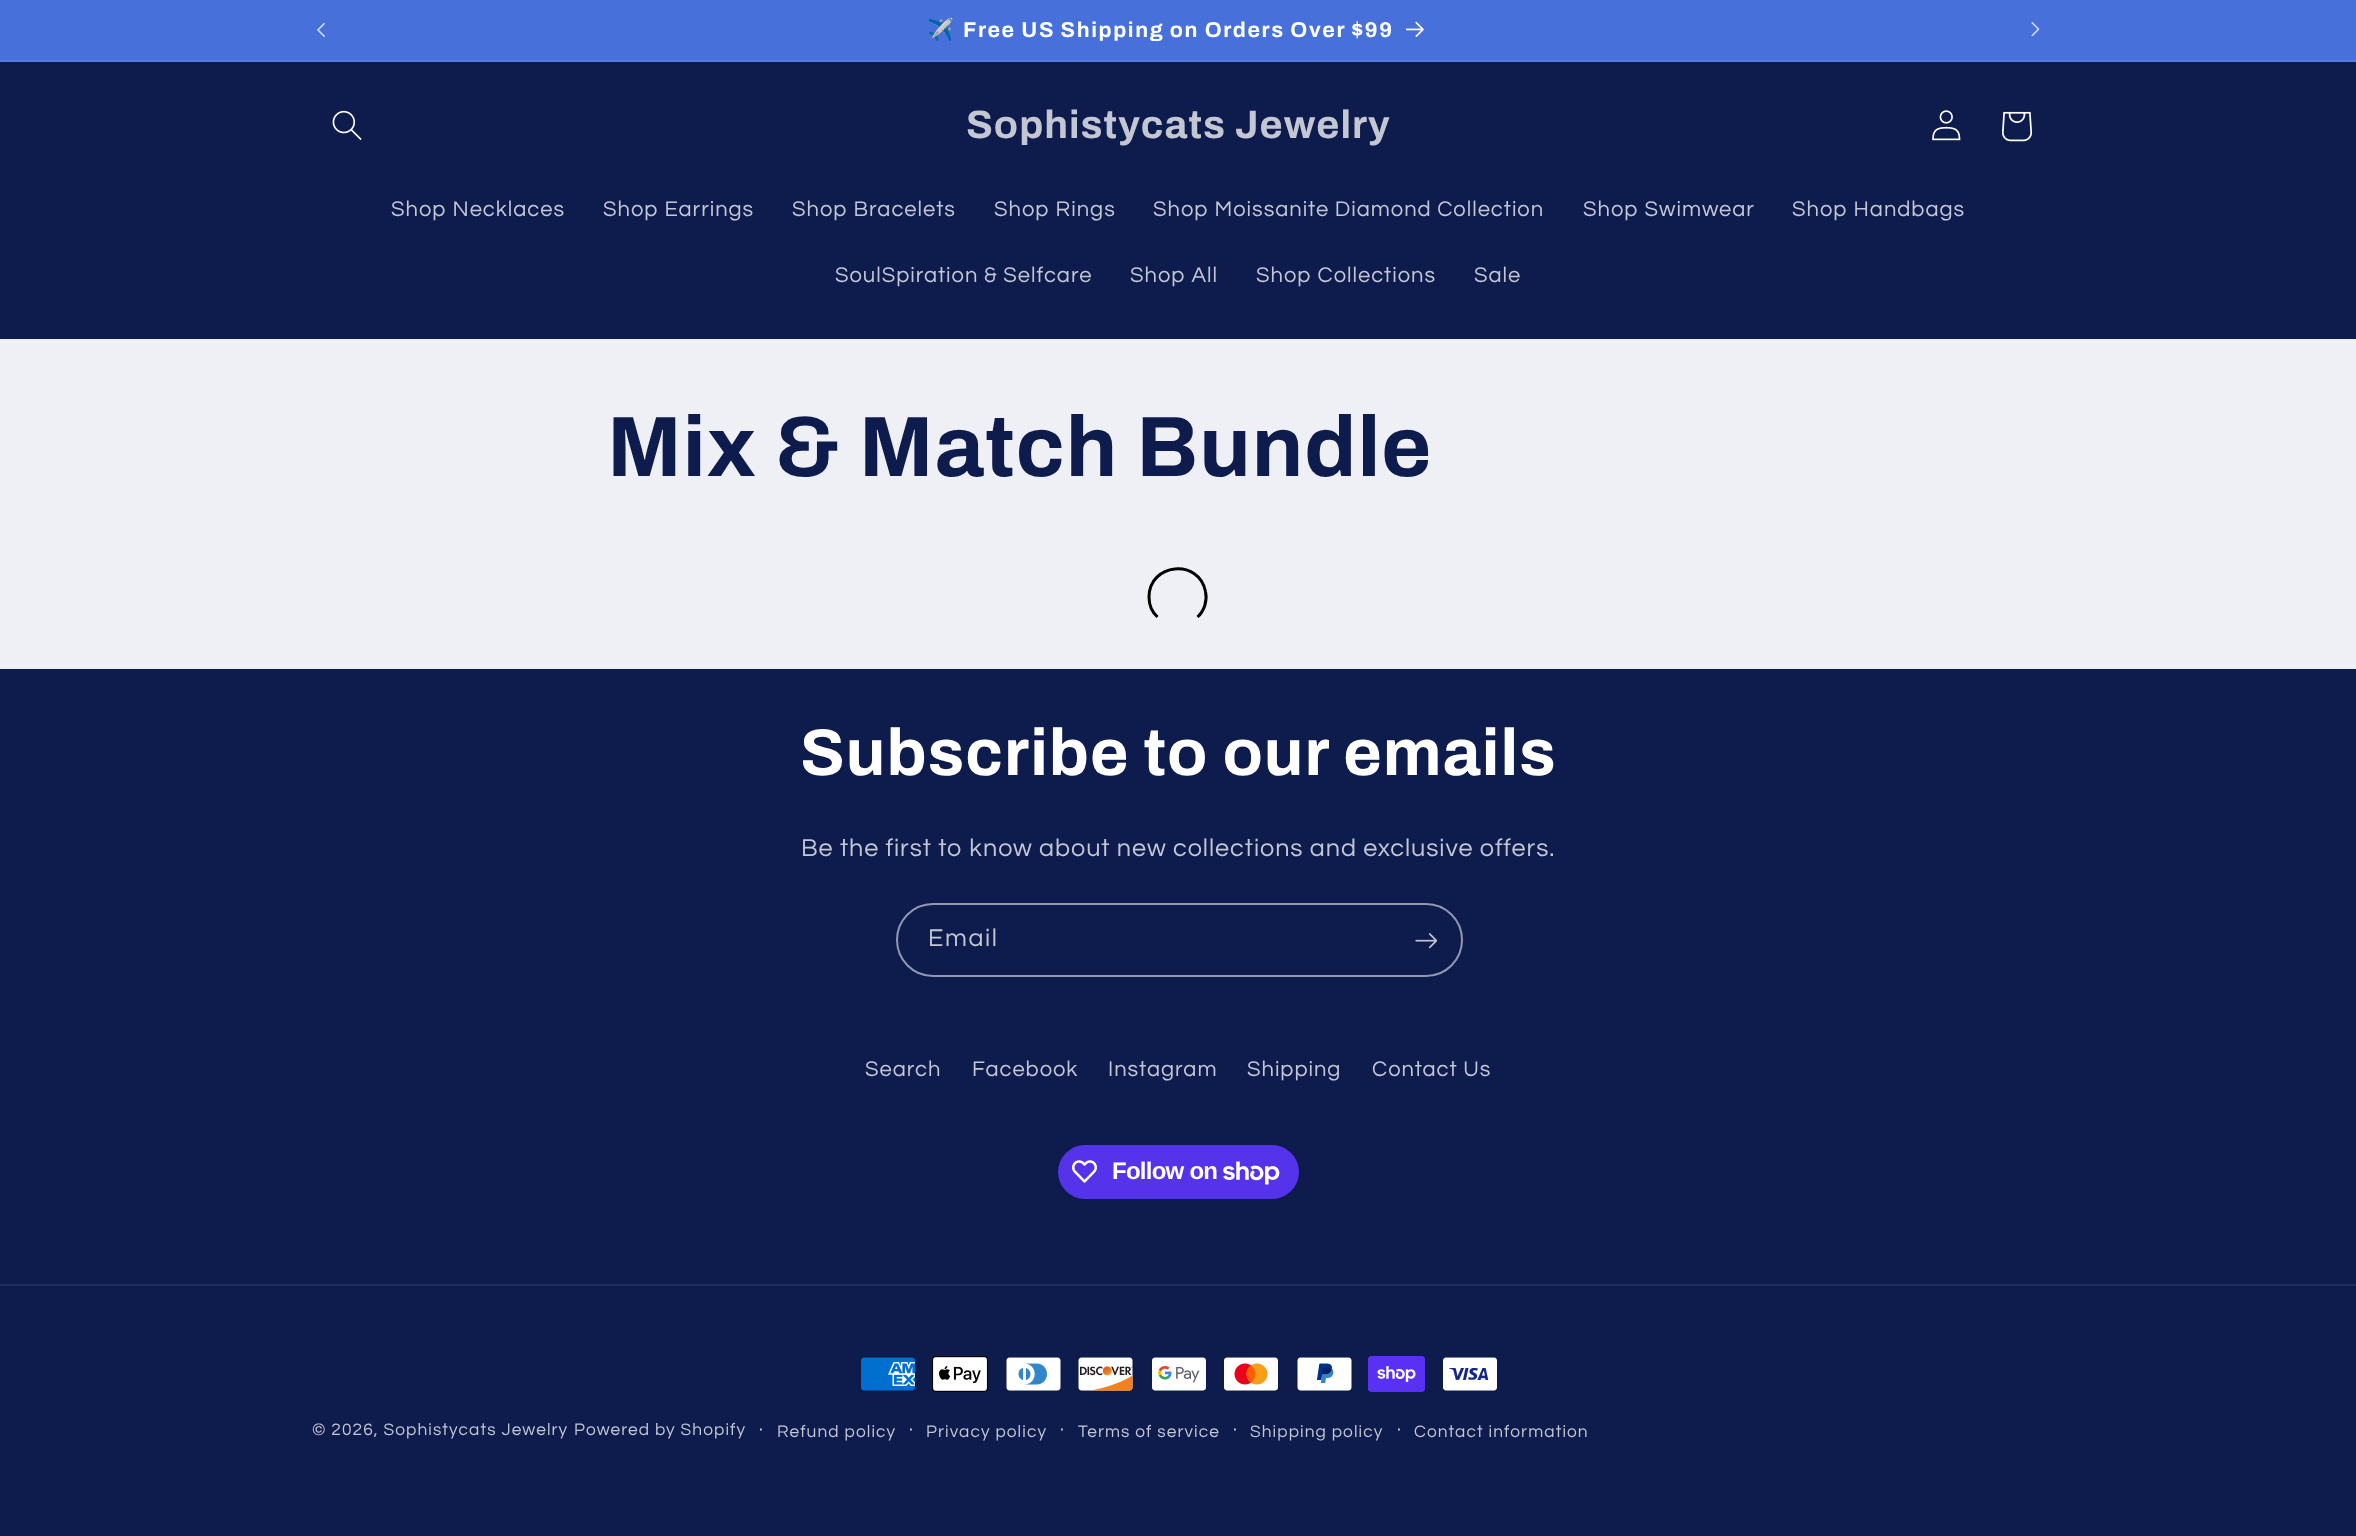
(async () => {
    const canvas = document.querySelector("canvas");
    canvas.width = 2356;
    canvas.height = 1536;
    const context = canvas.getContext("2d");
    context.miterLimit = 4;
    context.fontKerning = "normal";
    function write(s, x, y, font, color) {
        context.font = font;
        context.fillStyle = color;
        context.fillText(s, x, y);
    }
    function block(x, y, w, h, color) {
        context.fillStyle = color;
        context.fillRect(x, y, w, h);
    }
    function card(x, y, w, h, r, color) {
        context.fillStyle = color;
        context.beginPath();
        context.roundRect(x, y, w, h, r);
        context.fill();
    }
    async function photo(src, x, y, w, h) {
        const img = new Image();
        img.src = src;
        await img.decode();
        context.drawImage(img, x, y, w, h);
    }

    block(0, 0, 2356, 1536, "rgb(239, 240, 245)");
    block(0, 0, 2356, 60, "rgb(71, 112, 219)");
    block(0, 60, 2356, 2, "rgb(86, 123, 222)");
    await photo("media/1.png", 317, 22, 8, 15);
    context.letterSpacing = "1.6px";
    write("✈️", 927, 37, "bold 21.45px Noto Color Emoji", "rgb(255, 255, 255)");
    context.wordSpacing = "-0.25px";
    write("Free US Shipping on Orders Over $99", 963, 37, "bold 21.45px Archivo", "rgb(255, 255, 255)");
    await photo("media/2.png", 1406, 21, 18, 16);
    await photo("media/3.png", 2031, 22, 9, 15);
    block(0, 62, 2356, 277, "rgb(14, 27, 77)");
    await photo("media/4.png", 332, 110, 30, 30);
    context.letterSpacing = "1px";
    context.wordSpacing = "0px";
    write("Sophistycats Jewelry", 966, 138, "bold 39.6px Archivo", "rgb(195, 198, 211)");
    await photo("media/5.png", 1932, 110, 29, 31);
    await photo("media/6.png", 2002, 111, 30, 31);
    context.letterSpacing = "0.95px";
    write("Shop Necklaces", 391, 216, "22px Questrial", "rgb(195, 198, 211)");
    write("Shop Earrings", 603, 216, "22px Questrial", "rgb(195, 198, 211)");
    write("Shop Bracelets", 792, 216, "22px Questrial", "rgb(195, 198, 211)");
    write("Shop Rings", 994, 216, "22px Questrial", "rgb(195, 198, 211)");
    write("Shop Moissanite Diamond Collection", 1153, 216, "22px Questrial", "rgb(195, 198, 211)");
    write("Shop Swimwear", 1583, 216, "22px Questrial", "rgb(195, 198, 211)");
    write("Shop Handbags", 1792, 216, "22px Questrial", "rgb(195, 198, 211)");
    write("SoulSpiration & Selfcare", 835, 282, "22px Questrial", "rgb(195, 198, 211)");
    write("Shop All", 1130, 282, "22px Questrial", "rgb(195, 198, 211)");
    write("Shop Collections", 1256, 282, "22px Questrial", "rgb(195, 198, 211)");
    write("Sale", 1474, 282, "22px Questrial", "rgb(195, 198, 211)");
    context.letterSpacing = "1px";
    write("Mix & Match Bundle", 607, 476, "bold 85.75px Archivo", "rgb(14, 27, 77)");
    context.beginPath();
    context.moveTo(1157.5, 617);
    context.bezierCurveTo(1152, 612, 1149, 604.5, 1149, 597);
    context.bezierCurveTo(1149, 563, 1199, 558, 1205.5, 591.5);
    context.bezierCurveTo(1207.5, 600.5, 1204.5, 610.5, 1197.5, 617);
    context.strokeStyle = "rgb(0, 0, 0)";
    context.lineWidth = 3;
    context.stroke();
    block(0, 669, 2356, 867, "rgb(14, 27, 77)");
    write("Subscribe to our emails", 800, 775, "bold 66px Archivo", "rgb(255, 255, 255)");
    context.letterSpacing = "0.95px";
    write("Be the first to know about new collections and exclusive offers.", 801, 856, "25.2px Questrial", "rgb(195, 198, 211)");
    context.beginPath();
    context.roundRect(897, 904, 565, 72, 36);
    context.strokeStyle = "rgb(147, 152, 175)";
    context.lineWidth = 2;
    context.stroke();
    context.letterSpacing = "1.6px";
    write("Email", 928, 946, "25.2px Questrial", "rgb(195, 198, 211)");
    await photo("media/7.png", 1415, 933, 22, 16);
    context.letterSpacing = "0.95px";
    write("Search", 865, 1076, "22px Questrial", "rgb(195, 198, 211)");
    write("Facebook", 972, 1076, "22px Questrial", "rgb(195, 198, 211)");
    write("Instagram", 1108, 1076, "22px Questrial", "rgb(195, 198, 211)");
    write("Shipping", 1247, 1076, "22px Questrial", "rgb(195, 198, 211)");
    write("Contact Us", 1372, 1076, "22px Questrial", "rgb(195, 198, 211)");
    card(1058, 1145, 241, 54, 27, "rgb(84, 51, 235)");
    await photo("media/8.png", 1072, 1160, 25, 23);
    context.letterSpacing = "-0.75px";
    write("Follow on", 1112, 1179, "bold 24px Liberation Sans", "rgb(255, 255, 255)");
    await photo("media/9.png", 1223, 1161, 57, 24);
    block(0, 1284, 2356, 2, "rgb(33, 45, 91)");
    await photo("media/10.png", 860, 1356, 56, 36);
    await photo("media/11.png", 932, 1356, 57, 36);
    await photo("media/12.png", 1005, 1356, 57, 36);
    await photo("media/13.png", 1077, 1356, 57, 36);
    await photo("media/14.png", 1151, 1356, 56, 36);
    await photo("media/15.png", 1223, 1356, 56, 36);
    await photo("media/16.png", 1296, 1356, 57, 36);
    await photo("media/17.png", 1368, 1356, 57, 36);
    await photo("media/18.png", 1442, 1356, 56, 36);
    context.letterSpacing = "1.1px";
    write("© 2026, Sophistycats Jewelry", 312, 1435, "17.3px Questrial", "rgb(195, 198, 211)");
    write("Powered by Shopify", 574, 1435, "17.3px Questrial", "rgb(195, 198, 211)");
    write("·", 759, 1435, "19px Questrial", "rgb(195, 198, 211)");
    write("Refund policy", 777, 1437, "17.3px Questrial", "rgb(195, 198, 211)");
    write("·", 909, 1435, "19px Questrial", "rgb(195, 198, 211)");
    write("Privacy policy", 926, 1437, "17.3px Questrial", "rgb(195, 198, 211)");
    write("·", 1060, 1435, "19px Questrial", "rgb(195, 198, 211)");
    write("Terms of service", 1078, 1437, "17.3px Questrial", "rgb(195, 198, 211)");
    write("·", 1233, 1435, "19px Questrial", "rgb(195, 198, 211)");
    write("Shipping policy", 1250, 1437, "17.3px Questrial", "rgb(195, 198, 211)");
    write("·", 1397, 1435, "19px Questrial", "rgb(195, 198, 211)");
    write("Contact information", 1414, 1437, "17.3px Questrial", "rgb(195, 198, 211)");
})();
